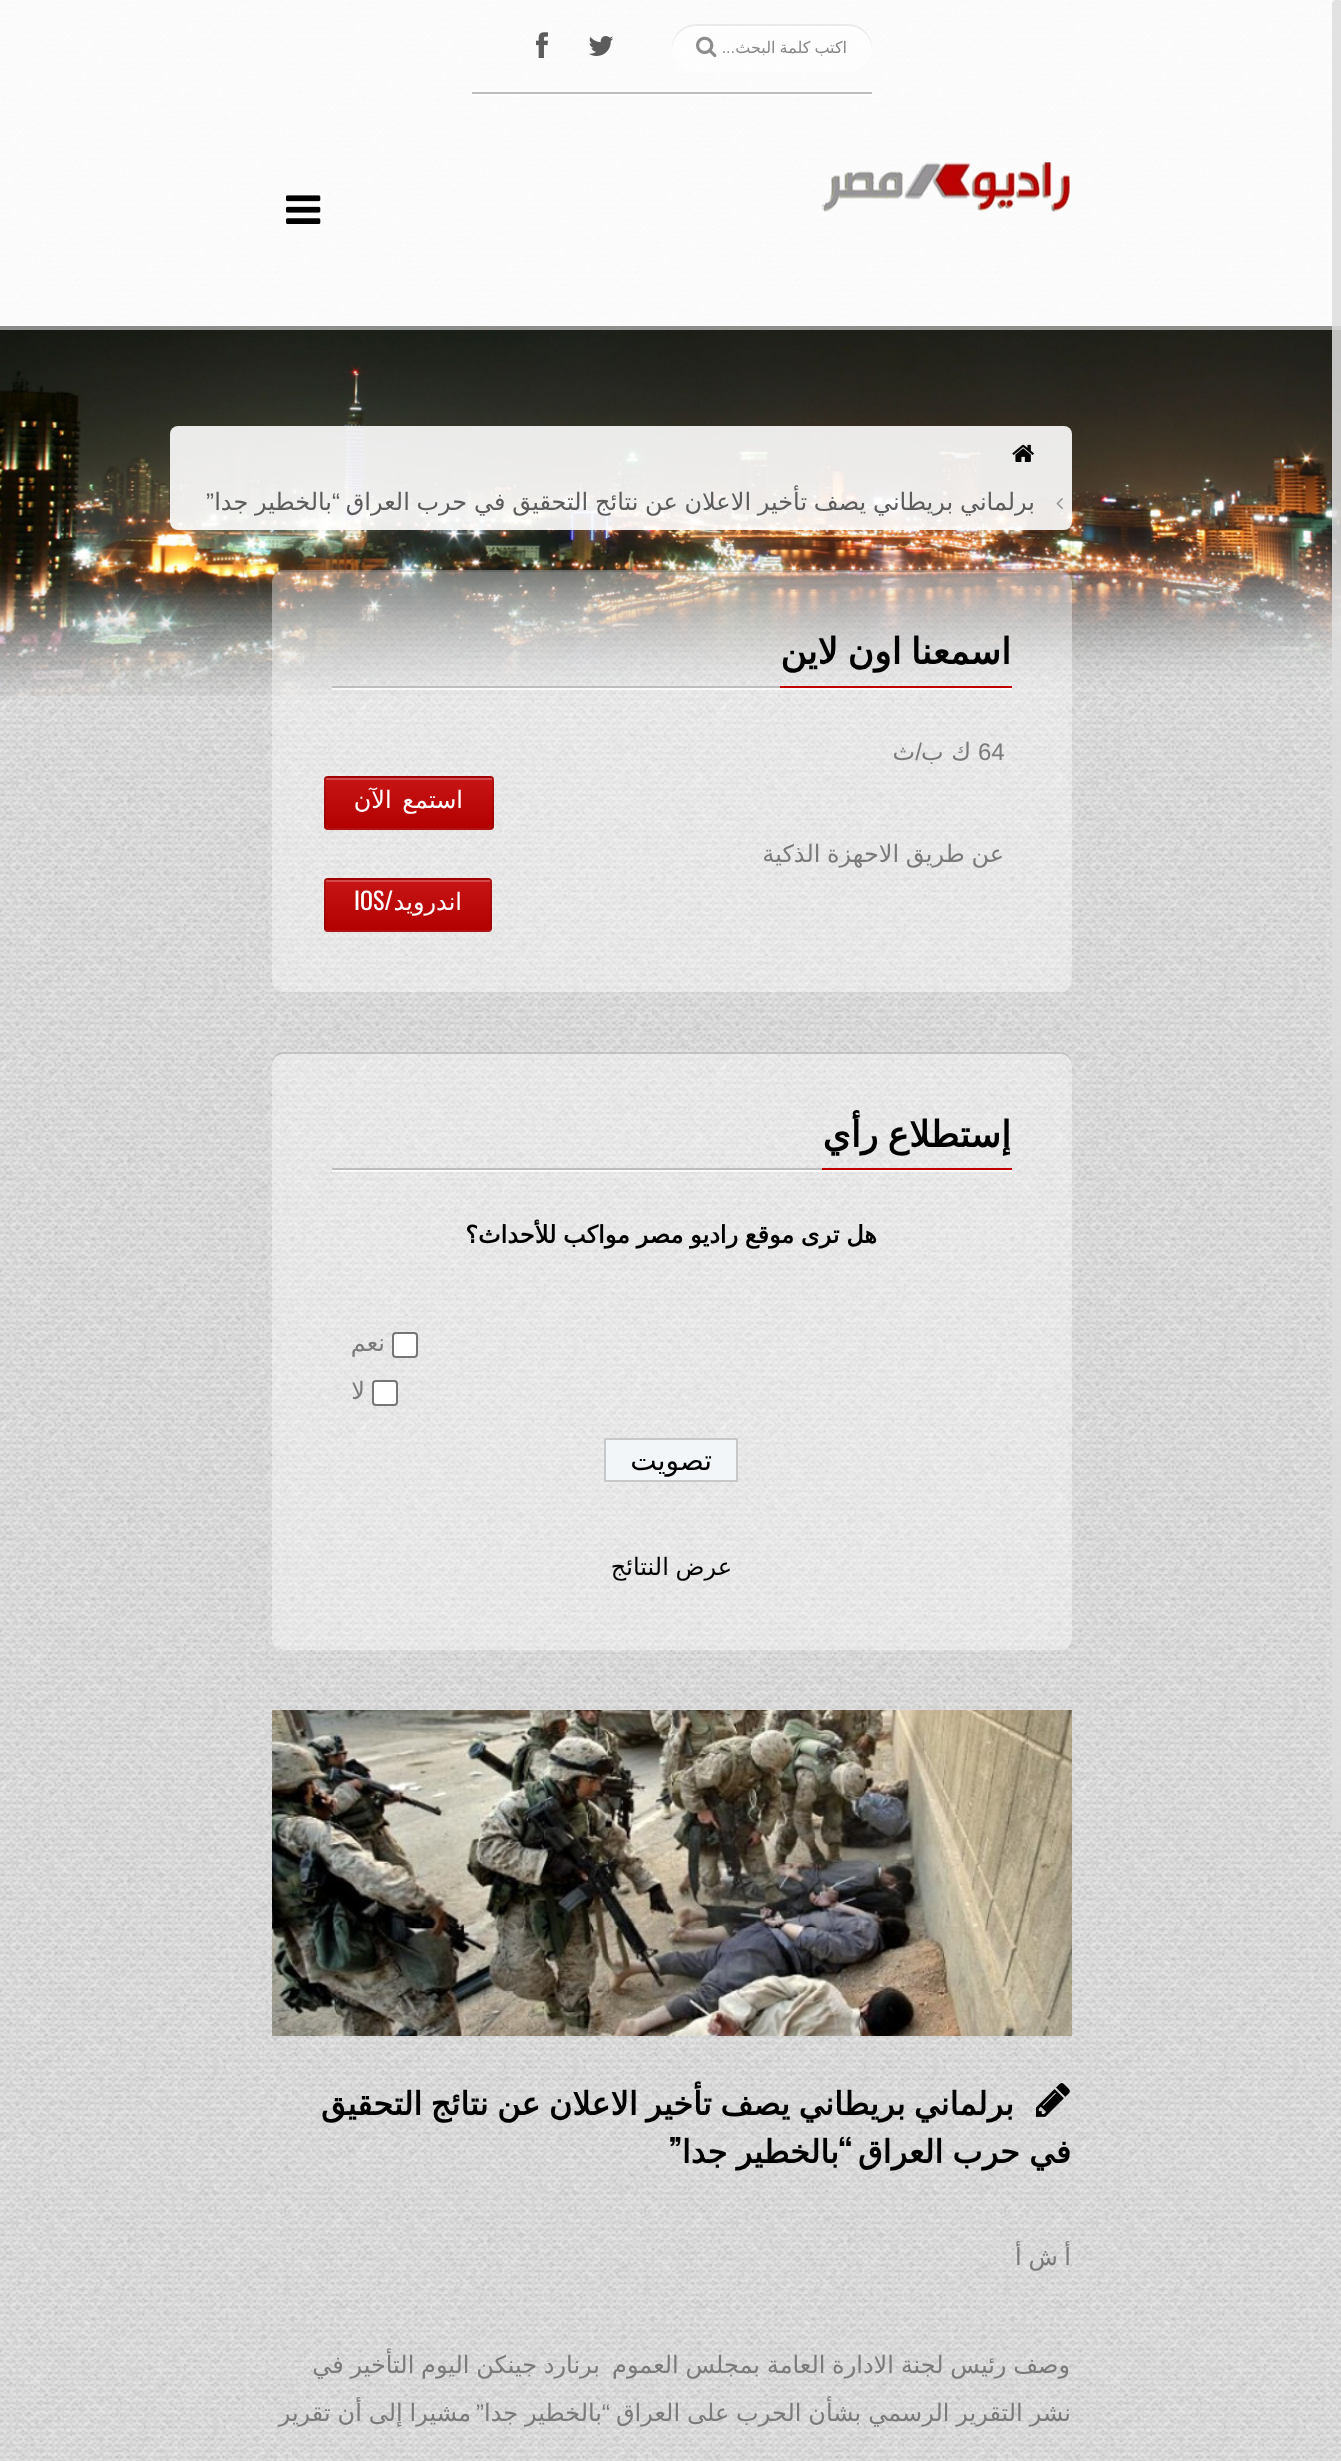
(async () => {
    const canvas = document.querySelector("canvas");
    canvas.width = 1341;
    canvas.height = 2461;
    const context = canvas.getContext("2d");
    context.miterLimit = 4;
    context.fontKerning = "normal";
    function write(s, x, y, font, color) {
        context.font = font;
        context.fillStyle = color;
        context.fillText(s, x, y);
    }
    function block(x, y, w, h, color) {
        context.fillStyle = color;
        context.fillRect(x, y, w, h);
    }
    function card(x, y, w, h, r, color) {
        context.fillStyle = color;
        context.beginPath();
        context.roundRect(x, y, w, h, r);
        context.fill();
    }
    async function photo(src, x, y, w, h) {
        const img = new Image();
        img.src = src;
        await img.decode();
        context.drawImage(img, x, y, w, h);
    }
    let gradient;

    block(0, 0, 1341, 2461, "rgb(255, 255, 255)");
    await photo("media/1.png", 0, 0, 1341, 2461);
    await photo("media/7.png", 0, 326, 1341, 370);
    block(0, 326, 1341, 4, "rgba(255, 255, 255, 0.5)");
    block(0, 0, 1341, 326, "rgba(255, 255, 255, 0.9)");
    card(1332, 0, 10, 1832, 4, "rgba(221, 221, 221, 0.86)");
    block(472, 94, 400, 2, "rgba(255, 255, 255, 0.75)");
    block(472, 92, 400, 2, "rgb(189, 189, 189)");
    card(672, 24, 200, 48, 24, "rgba(255, 255, 255, 0.6)");
    context.fillStyle = "rgb(234, 234, 234)";
    context.beginPath();
    context.moveTo(696, 26);
    context.lineTo(848, 26);
    context.bezierCurveTo(861, 26, 871, 36, 872, 49);
    context.lineTo(872, 48);
    context.bezierCurveTo(872, 35, 861, 24, 848, 24);
    context.lineTo(696, 24);
    context.bezierCurveTo(683, 24, 672, 35, 672, 48);
    context.lineTo(672, 49);
    context.bezierCurveTo(673, 36, 683, 26, 696, 26);
    context.closePath();
    context.fill();
    context.wordSpacing = "-1px";
    context.direction = "rtl";
    write("اكتب كلمة البحث", 847, 53, "16px DejaVu Sans", "rgb(134, 134, 134)");
    context.wordSpacing = "0px";
    write("...", 735, 53, "16px Liberation Sans", "rgb(134, 134, 134)");
    await photo("media/2.png", 696, 36, 21, 22);
    await photo("media/3.png", 588, 36, 26, 20);
    await photo("media/4.png", 536, 32, 12, 26);
    await photo("media/5.png", 822, 162, 248, 50);
    await photo("media/6.png", 286, 195, 35, 29);
    card(170, 426, 902, 104, 8, "rgba(255, 255, 255, 0.9)");
    await photo("media/8.png", 1012, 444, 22, 18);
    context.wordSpacing = "-0.9px";
    write("برلماني بريطاني يصف تأخير الاعلان عن نتائج التحقيق في حرب العراق", 1035, 510, "24px DejaVu Sans", "rgb(92, 92, 92)");
    context.wordSpacing = "0px";
    write("“", 340, 510, "24px Liberation Sans", "rgb(92, 92, 92)");
    context.wordSpacing = "-0.9px";
    write("بالخطير جدا", 332, 510, "24px DejaVu Sans", "rgb(92, 92, 92)");
    context.wordSpacing = "0px";
    write("”", 214, 510, "24px Liberation Sans", "rgb(92, 92, 92)");
    await photo("media/9.png", 1056, 498, 7, 11);
    card(272, 570, 800, 422, 12, "rgba(255, 255, 255, 0.4)");
    context.fillStyle = "rgba(0, 0, 0, 0.15)";
    context.beginPath();
    context.moveTo(284, 572);
    context.lineTo(1060, 572);
    context.bezierCurveTo(1067, 572, 1072, 577, 1072, 584);
    context.lineTo(1072, 582);
    context.bezierCurveTo(1072, 575, 1067, 570, 1060, 570);
    context.lineTo(284, 570);
    context.bezierCurveTo(277, 570, 272, 575, 272, 582);
    context.lineTo(272, 584);
    context.bezierCurveTo(272, 577, 277, 572, 284, 572);
    context.closePath();
    context.fill();
    block(780, 686, 232, 2, "rgb(194, 0, 1)");
    context.wordSpacing = "-2px";
    write("اسمعنا اون لاين", 1011, 664, "bold 36px DejaVu Sans", "rgb(0, 0, 0)");
    block(332, 688, 680, 2, "rgba(255, 255, 255, 0.75)");
    block(332, 686, 448, 2, "rgb(189, 189, 189)");
    context.wordSpacing = "0px";
    context.direction = "ltr";
    write("64", 978, 760, "24px Liberation Sans", "rgb(122, 122, 122)");
    context.direction = "rtl";
    write("ك ب", 971, 760, "24px DejaVu Sans", "rgb(122, 122, 122)");
    write("/", 922, 760, "24px Liberation Sans", "rgb(122, 122, 122)");
    write("ث", 915, 760, "24px DejaVu Sans", "rgb(122, 122, 122)");
    card(324, 776, 170, 54, 4, "rgb(194, 0, 1)");
    context.save();
    context.beginPath();
    context.roundRect(324, 776, 170, 54, 4);
    context.clip();
    gradient = context.createLinearGradient(326, 778, 326, 728);
    gradient.addColorStop(0, "rgba(0, 0, 0, 0.08)");
    gradient.addColorStop(0.5, "rgba(128, 128, 128, 0.08)");
    gradient.addColorStop(1, "rgba(255, 255, 255, 0.08)");
    context.fillStyle = gradient;
    context.fillRect(324, 776, 170, 2);
    context.restore();
    gradient = context.createLinearGradient(326, 828, 326, 778);
    gradient.addColorStop(0, "rgba(0, 0, 0, 0.08)");
    gradient.addColorStop(0.5, "rgba(128, 128, 128, 0.08)");
    gradient.addColorStop(1, "rgba(255, 255, 255, 0.08)");
    context.fillStyle = gradient;
    context.fillRect(324, 778, 170, 50);
    context.save();
    context.beginPath();
    context.roundRect(324, 776, 170, 54, 4);
    context.clip();
    gradient = context.createLinearGradient(326, 878, 326, 828);
    gradient.addColorStop(0, "rgba(0, 0, 0, 0.08)");
    gradient.addColorStop(0.5, "rgba(128, 128, 128, 0.08)");
    gradient.addColorStop(1, "rgba(255, 255, 255, 0.08)");
    context.fillStyle = gradient;
    context.fillRect(324, 828, 170, 2);
    context.restore();
    context.beginPath();
    context.roundRect(325, 777, 168, 52, 3);
    context.strokeStyle = "rgba(0, 0, 0, 0.1)";
    context.lineWidth = 2;
    context.stroke();
    block(326, 778, 166, 2, "rgba(255, 255, 255, 0.24)");
    context.wordSpacing = "3px";
    write("استمع الآن", 463, 808, "24px DejaVu Sans", "rgb(255, 255, 255)");
    context.wordSpacing = "-1px";
    write("عن طريق الاحهزة الذكية", 1004, 862, "24px DejaVu Sans", "rgb(122, 122, 122)");
    card(324, 878, 168, 54, 4, "rgb(194, 0, 1)");
    context.save();
    context.beginPath();
    context.roundRect(324, 878, 168, 54, 4);
    context.clip();
    gradient = context.createLinearGradient(326, 880, 326, 830);
    gradient.addColorStop(0, "rgba(0, 0, 0, 0.08)");
    gradient.addColorStop(0.5, "rgba(128, 128, 128, 0.08)");
    gradient.addColorStop(1, "rgba(255, 255, 255, 0.08)");
    context.fillStyle = gradient;
    context.fillRect(324, 878, 168, 2);
    context.restore();
    gradient = context.createLinearGradient(326, 930, 326, 880);
    gradient.addColorStop(0, "rgba(0, 0, 0, 0.08)");
    gradient.addColorStop(0.5, "rgba(128, 128, 128, 0.08)");
    gradient.addColorStop(1, "rgba(255, 255, 255, 0.08)");
    context.fillStyle = gradient;
    context.fillRect(324, 880, 168, 50);
    context.save();
    context.beginPath();
    context.roundRect(324, 878, 168, 54, 4);
    context.clip();
    gradient = context.createLinearGradient(326, 980, 326, 930);
    gradient.addColorStop(0, "rgba(0, 0, 0, 0.08)");
    gradient.addColorStop(0.5, "rgba(128, 128, 128, 0.08)");
    gradient.addColorStop(1, "rgba(255, 255, 255, 0.08)");
    context.fillStyle = gradient;
    context.fillRect(324, 930, 168, 2);
    context.restore();
    context.beginPath();
    context.roundRect(325, 879, 166, 52, 3);
    context.stroke();
    block(326, 880, 164, 2, "rgba(255, 255, 255, 0.24)");
    context.wordSpacing = "0px";
    write("اندرويد", 462, 910, "24px DejaVu Sans", "rgb(255, 255, 255)");
    write("/", 393, 910, "24px Oswald", "rgb(255, 255, 255)");
    context.direction = "ltr";
    write("IOS", 354, 910, "24px Oswald", "rgb(255, 255, 255)");
    card(272, 1052, 800, 598, 12, "rgba(255, 255, 255, 0.4)");
    context.fillStyle = "rgba(0, 0, 0, 0.15)";
    context.beginPath();
    context.moveTo(284, 1054);
    context.lineTo(1060, 1054);
    context.bezierCurveTo(1067, 1054, 1072, 1059, 1072, 1066);
    context.lineTo(1072, 1064);
    context.bezierCurveTo(1072, 1057, 1067, 1052, 1060, 1052);
    context.lineTo(284, 1052);
    context.bezierCurveTo(277, 1052, 272, 1057, 272, 1064);
    context.lineTo(272, 1066);
    context.bezierCurveTo(272, 1059, 277, 1054, 284, 1054);
    context.closePath();
    context.fill();
    block(822, 1168, 190, 2, "rgb(194, 0, 1)");
    context.wordSpacing = "-2px";
    context.direction = "rtl";
    write("إستطلاع رأي", 1011, 1147, "bold 36px DejaVu Sans", "rgb(0, 0, 0)");
    block(332, 1170, 680, 2, "rgba(255, 255, 255, 0.75)");
    block(332, 1168, 490, 2, "rgb(189, 189, 189)");
    context.wordSpacing = "-1px";
    write("هل ترى موقع راديو مصر مواكب للأحداث؟", 877, 1243, "bold 24px DejaVu Sans", "rgb(0, 0, 0)");
    context.fillStyle = "rgb(255, 255, 255)";
    context.beginPath();
    context.roundRect(393, 1333, 24, 24, 3);
    context.fill();
    context.strokeStyle = "rgb(118, 118, 118)";
    context.stroke();
    context.wordSpacing = "0px";
    write("نعم", 385, 1351, "24px DejaVu Sans", "rgb(122, 122, 122)");
    context.fillStyle = "rgb(255, 255, 255)";
    context.beginPath();
    context.roundRect(373, 1381, 24, 24, 3);
    context.fill();
    context.stroke();
    write("لا", 365, 1399, "24px DejaVu Sans", "rgb(122, 122, 122)");
    context.fillStyle = "rgb(243, 246, 248)";
    context.beginPath();
    context.rect(605, 1439, 132, 42);
    context.fill();
    context.strokeStyle = "rgb(200, 200, 200)";
    context.stroke();
    write("تصويت", 712, 1470, "28px DejaVu Sans", "rgb(0, 0, 0)");
    context.wordSpacing = "-1px";
    write("عرض النتائج", 732, 1575, "24px DejaVu Sans", "rgb(0, 0, 0)");
    await photo("media/10.png", 272, 1710, 800, 326);
    await photo("media/11.png", 1036, 2083, 34, 34);
    context.wordSpacing = "-1.75px";
    write("برلماني بريطاني يصف تأخير الاعلان عن نتائج التحقيق", 1014, 2115, "bold 32px DejaVu Sans", "rgb(0, 0, 0)");
    context.wordSpacing = "-1px";
    write("في حرب العراق", 1071, 2163, "bold 32px DejaVu Sans", "rgb(0, 0, 0)");
    context.wordSpacing = "0px";
    write("“", 852, 2163, "bold 32px Oswald", "rgb(0, 0, 0)");
    context.wordSpacing = "-1px";
    write("بالخطير جدا", 839, 2163, "bold 32px DejaVu Sans", "rgb(0, 0, 0)");
    context.wordSpacing = "0px";
    write("”", 682, 2163, "bold 32px Oswald", "rgb(0, 0, 0)");
    context.wordSpacing = "-1px";
    write("أ ش أ", 1071, 2265, "24px DejaVu Sans", "rgb(122, 122, 122)");
    context.wordSpacing = "-0.9px";
    write("وصف رئيس لجنة الادارة العامة بمجلس العموم", 1070, 2373, "24px DejaVu Sans", "rgb(122, 122, 122)");
    write("برنارد جينكن اليوم التأخير في", 600, 2373, "24px DejaVu Sans", "rgb(122, 122, 122)");
    context.wordSpacing = "-0.75px";
    write("نشر التقرير الرسمي بشأن الحرب على العراق", 1071, 2421, "24px DejaVu Sans", "rgb(122, 122, 122)");
    context.wordSpacing = "0px";
    write("“", 610, 2421, "24px Liberation Sans", "rgb(122, 122, 122)");
    context.wordSpacing = "-0.75px";
    write("بالخطير جدا", 602, 2421, "24px DejaVu Sans", "rgb(122, 122, 122)");
    context.wordSpacing = "0px";
    write("”", 484, 2421, "24px Liberation Sans", "rgb(122, 122, 122)");
    context.wordSpacing = "-0.75px";
    write("مشيرا إلى أن تقرير", 471, 2421, "24px DejaVu Sans", "rgb(122, 122, 122)");
})();
